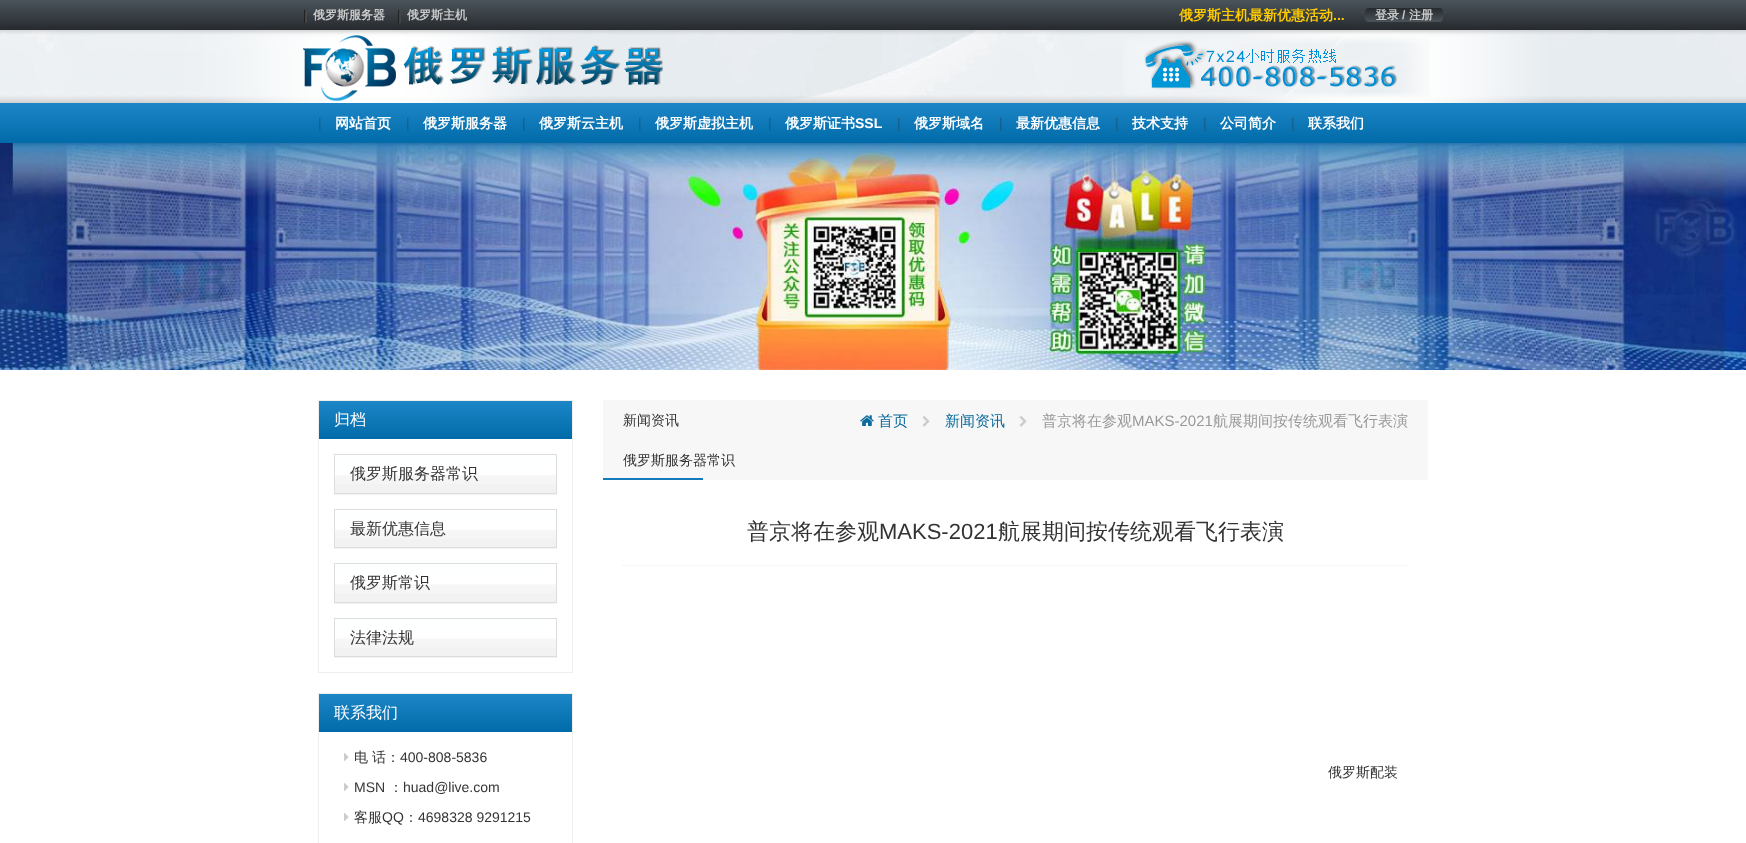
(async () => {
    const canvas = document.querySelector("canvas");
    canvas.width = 1746;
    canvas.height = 843;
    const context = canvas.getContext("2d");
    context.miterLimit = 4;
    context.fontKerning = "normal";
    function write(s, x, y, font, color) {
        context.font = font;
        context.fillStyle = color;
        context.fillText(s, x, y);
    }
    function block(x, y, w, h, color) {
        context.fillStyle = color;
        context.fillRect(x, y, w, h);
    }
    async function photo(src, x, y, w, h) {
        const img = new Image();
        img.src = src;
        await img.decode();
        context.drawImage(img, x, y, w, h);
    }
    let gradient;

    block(0, 0, 1746, 843, "rgb(255, 255, 255)");
    context.fillStyle = "rgba(0, 0, 0, 0.2)";
    context.filter = "blur(2px)";
    context.beginPath();
    context.rect(0, 2, 1746, 30);
    context.fill();
    context.filter = "none";
    gradient = context.createLinearGradient(873, 0, 873, 30);
    gradient.addColorStop(0, "rgb(75, 84, 91)");
    gradient.addColorStop(1, "rgb(38, 42, 46)");
    context.fillStyle = gradient;
    context.fillRect(0, 0, 1746, 30);
    write("|", 303, 20, "bold 14px Liberation Sans", "rgb(31, 31, 31)");
    write("|", 304, 20, "bold 14px Liberation Sans", "rgb(72, 72, 72)");
    write("俄罗斯服务器", 313, 19, "bold 12px WenQuanYi Zen Hei", "rgb(204, 204, 204)");
    write("|", 397, 20, "bold 14px Liberation Sans", "rgb(31, 31, 31)");
    write("俄罗斯主机", 407, 19, "bold 12px WenQuanYi Zen Hei", "rgb(204, 204, 204)");
    write("|", 398, 20, "bold 14px Liberation Sans", "rgb(72, 72, 72)");
    write("俄罗斯主机最新优惠活动", 1179, 20, "bold 14px WenQuanYi Zen Hei", "rgb(255, 204, 0)");
    write("...", 1333, 20, "bold 14px Liberation Sans", "rgb(255, 204, 0)");
    gradient = context.createLinearGradient(1404, 8, 1404, 22);
    gradient.addColorStop(0, "rgb(38, 42, 46)");
    gradient.addColorStop(1, "rgb(75, 84, 91)");
    context.fillStyle = gradient;
    context.beginPath();
    context.roundRect(1365, 8, 78, 14, 4);
    context.fill();
    write("登录", 1375, 19, "bold 12px WenQuanYi Zen Hei", "rgb(204, 204, 204)");
    write("/", 1402, 19, "bold 12px Liberation Sans", "rgb(204, 204, 204)");
    write("注册", 1409, 19, "bold 12px WenQuanYi Zen Hei", "rgb(204, 204, 204)");
    await photo("media/1.png", 0, 30, 1746, 73);
    await photo("media/2.png", 303, 35, 360, 66);
    await photo("media/3.png", 1123, 36, 306, 62);
    await photo("media/4.png", 0, 143, 1746, 227);
    context.fillStyle = "rgba(2, 43, 119, 0.16)";
    context.filter = "blur(1px)";
    context.beginPath();
    context.rect(0, 105, 1746, 40);
    context.fill();
    context.filter = "none";
    gradient = context.createLinearGradient(873, 103, 873, 143);
    gradient.addColorStop(0, "rgb(29, 134, 199)");
    gradient.addColorStop(1, "rgb(1, 106, 168)");
    context.fillStyle = gradient;
    context.fillRect(0, 103, 1746, 40);
    write("|", 318, 128, "14px Liberation Sans", "rgb(24, 93, 134)");
    write("网站首页", 335, 128, "bold 14px WenQuanYi Zen Hei", "rgb(255, 255, 255)");
    write("|", 406, 128, "14px Liberation Sans", "rgb(24, 93, 134)");
    write("俄罗斯服务器", 423, 128, "bold 14px WenQuanYi Zen Hei", "rgb(255, 255, 255)");
    write("|", 522, 128, "14px Liberation Sans", "rgb(24, 93, 134)");
    write("俄罗斯云主机", 539, 128, "bold 14px WenQuanYi Zen Hei", "rgb(255, 255, 255)");
    write("|", 638, 128, "14px Liberation Sans", "rgb(24, 93, 134)");
    write("俄罗斯虚拟主机", 655, 128, "bold 14px WenQuanYi Zen Hei", "rgb(255, 255, 255)");
    write("|", 768, 128, "14px Liberation Sans", "rgb(24, 93, 134)");
    write("俄罗斯证书", 785, 128, "bold 14px WenQuanYi Zen Hei", "rgb(255, 255, 255)");
    write("SSL", 855, 128, "bold 14px Liberation Sans", "rgb(255, 255, 255)");
    write("|", 897, 128, "14px Liberation Sans", "rgb(24, 93, 134)");
    write("俄罗斯域名", 914, 128, "bold 14px WenQuanYi Zen Hei", "rgb(255, 255, 255)");
    write("|", 999, 128, "14px Liberation Sans", "rgb(24, 93, 134)");
    write("最新优惠信息", 1016, 128, "bold 14px WenQuanYi Zen Hei", "rgb(255, 255, 255)");
    write("|", 1115, 128, "14px Liberation Sans", "rgb(24, 93, 134)");
    write("技术支持", 1132, 128, "bold 14px WenQuanYi Zen Hei", "rgb(255, 255, 255)");
    write("|", 1203, 128, "14px Liberation Sans", "rgb(24, 93, 134)");
    write("公司简介", 1220, 128, "bold 14px WenQuanYi Zen Hei", "rgb(255, 255, 255)");
    write("|", 1291, 128, "14px Liberation Sans", "rgb(24, 93, 134)");
    write("联系我们", 1308, 128, "bold 14px WenQuanYi Zen Hei", "rgb(255, 255, 255)");
    context.strokeStyle = "rgb(238, 238, 238)";
    context.strokeRect(318.5, 400.5, 254, 272);
    gradient = context.createLinearGradient(446, 401, 446, 439);
    gradient.addColorStop(0, "rgb(29, 134, 199)");
    gradient.addColorStop(1, "rgb(1, 106, 168)");
    context.fillStyle = gradient;
    context.fillRect(319, 401, 253, 38);
    write("归档", 334, 425, "500 16px WenQuanYi Zen Hei", "rgb(255, 255, 255)");
    context.fillStyle = "rgba(0, 0, 0, 0.05)";
    context.filter = "blur(0.5px)";
    context.beginPath();
    context.rect(334, 455, 223, 40);
    context.fill();
    context.filter = "none";
    context.strokeStyle = "rgb(221, 221, 221)";
    context.strokeRect(334.5, 454.5, 222, 39);
    gradient = context.createLinearGradient(446, 455, 446, 493);
    gradient.addColorStop(0, "rgb(254, 255, 255)");
    gradient.addColorStop(0.51, "rgb(255, 255, 255)");
    gradient.addColorStop(0.55, "rgb(247, 247, 247)");
    gradient.addColorStop(1, "rgb(242, 242, 242)");
    context.fillStyle = gradient;
    context.fillRect(335, 455, 221, 29);
    write("俄罗斯服务器常识", 350, 479, "500 16px WenQuanYi Zen Hei", "rgb(51, 51, 51)");
    context.fillStyle = "rgba(0, 0, 0, 0.05)";
    context.filter = "blur(0.5px)";
    context.beginPath();
    context.rect(334, 510, 223, 39);
    context.fill();
    context.filter = "none";
    context.strokeRect(334.5, 509.5, 222, 38);
    gradient = context.createLinearGradient(446, 510, 446, 547);
    gradient.addColorStop(0, "rgb(254, 255, 255)");
    gradient.addColorStop(0.51, "rgb(255, 255, 255)");
    gradient.addColorStop(0.55, "rgb(247, 247, 247)");
    gradient.addColorStop(1, "rgb(242, 242, 242)");
    context.fillStyle = gradient;
    context.fillRect(335, 510, 221, 29);
    write("最新优惠信息", 350, 534, "500 16px WenQuanYi Zen Hei", "rgb(51, 51, 51)");
    context.fillStyle = "rgba(0, 0, 0, 0.05)";
    context.filter = "blur(0.5px)";
    context.beginPath();
    context.rect(334, 564, 223, 40);
    context.fill();
    context.filter = "none";
    context.strokeRect(334.5, 563.5, 222, 39);
    gradient = context.createLinearGradient(446, 564, 446, 602);
    gradient.addColorStop(0, "rgb(254, 255, 255)");
    gradient.addColorStop(0.51, "rgb(255, 255, 255)");
    gradient.addColorStop(0.55, "rgb(247, 247, 247)");
    gradient.addColorStop(1, "rgb(242, 242, 242)");
    context.fillStyle = gradient;
    context.fillRect(335, 564, 221, 29);
    write("俄罗斯常识", 350, 588, "500 16px WenQuanYi Zen Hei", "rgb(51, 51, 51)");
    context.fillStyle = "rgba(0, 0, 0, 0.05)";
    context.filter = "blur(0.5px)";
    context.beginPath();
    context.rect(334, 619, 223, 39);
    context.fill();
    context.filter = "none";
    context.strokeRect(334.5, 618.5, 222, 38);
    gradient = context.createLinearGradient(446, 619, 446, 656);
    gradient.addColorStop(0, "rgb(254, 255, 255)");
    gradient.addColorStop(0.51, "rgb(255, 255, 255)");
    gradient.addColorStop(0.55, "rgb(247, 247, 247)");
    gradient.addColorStop(1, "rgb(242, 242, 242)");
    context.fillStyle = gradient;
    context.fillRect(335, 619, 221, 29);
    write("法律法规", 350, 643, "500 16px WenQuanYi Zen Hei", "rgb(51, 51, 51)");
    context.strokeStyle = "rgb(238, 238, 238)";
    context.strokeRect(318.5, 693.5, 254, 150);
    gradient = context.createLinearGradient(446, 694, 446, 732);
    gradient.addColorStop(0, "rgb(29, 134, 199)");
    gradient.addColorStop(1, "rgb(1, 106, 168)");
    context.fillStyle = gradient;
    context.fillRect(319, 694, 253, 38);
    write("联系我们", 334, 718, "500 16px WenQuanYi Zen Hei", "rgb(255, 255, 255)");
    await photo("media/5.png", 344, 753, 5, 8);
    write("电", 354, 762, "500 14px WenQuanYi Zen Hei", "rgb(51, 51, 51)");
    write("话：", 372, 762, "500 14px WenQuanYi Zen Hei", "rgb(51, 51, 51)");
    write("400-808-5836", 400, 762, "14px Liberation Sans", "rgb(51, 51, 51)");
    await photo("media/5.png", 344, 783, 5, 8);
    write("MSN", 354, 792, "14px Liberation Sans", "rgb(51, 51, 51)");
    write("：", 389, 792, "500 14px WenQuanYi Zen Hei", "rgb(51, 51, 51)");
    write("huad@live.com", 403, 792, "14px Liberation Sans", "rgb(51, 51, 51)");
    await photo("media/5.png", 344, 813, 5, 8);
    write("客服", 354, 822, "500 14px WenQuanYi Zen Hei", "rgb(51, 51, 51)");
    write("QQ", 382, 822, "14px Liberation Sans", "rgb(51, 51, 51)");
    write("：", 404, 822, "500 14px WenQuanYi Zen Hei", "rgb(51, 51, 51)");
    write("4698328 9291215", 418, 822, "14px Liberation Sans", "rgb(51, 51, 51)");
    block(603, 400, 825, 80, "rgb(247, 247, 247)");
    write("新闻资讯", 623, 425, "500 14px WenQuanYi Zen Hei", "rgb(51, 51, 51)");
    write("俄罗斯服务器常识", 623, 465, "500 14px WenQuanYi Zen Hei", "rgb(51, 51, 51)");
    block(603, 478, 100, 2, "rgb(19, 122, 187)");
    await photo("media/6.png", 860, 415, 14, 11);
    write("首页", 878, 426, "500 15px WenQuanYi Zen Hei", "rgb(9, 106, 157)");
    await photo("media/7.png", 922, 416, 8, 11);
    write("新闻资讯", 945, 426, "500 15px WenQuanYi Zen Hei", "rgb(9, 106, 157)");
    await photo("media/7.png", 1019, 416, 8, 11);
    write("普京将在参观", 1042, 426, "500 15px WenQuanYi Zen Hei", "rgb(153, 153, 153)");
    write("MAKS-2021", 1132, 426, "15px Liberation Sans", "rgb(153, 153, 153)");
    write("航展期间按传统观看飞行表演", 1213, 426, "500 15px WenQuanYi Zen Hei", "rgb(153, 153, 153)");
    context.beginPath();
    context.moveTo(623, 565.5);
    context.lineTo(1408, 565.5);
    context.setLineDash([1, 1]);
    context.stroke();
    write("普京将在参观", 747, 539, "500 22px WenQuanYi Zen Hei", "rgb(51, 51, 51)");
    write("MAKS-2021", 879, 539, "22px Liberation Sans", "rgb(51, 51, 51)");
    write("航展期间按传统观看飞行表演", 998, 539, "500 22px WenQuanYi Zen Hei", "rgb(51, 51, 51)");
    write("俄罗斯配装", 1328, 777, "500 14px WenQuanYi Zen Hei", "rgb(51, 51, 51)");
})();
